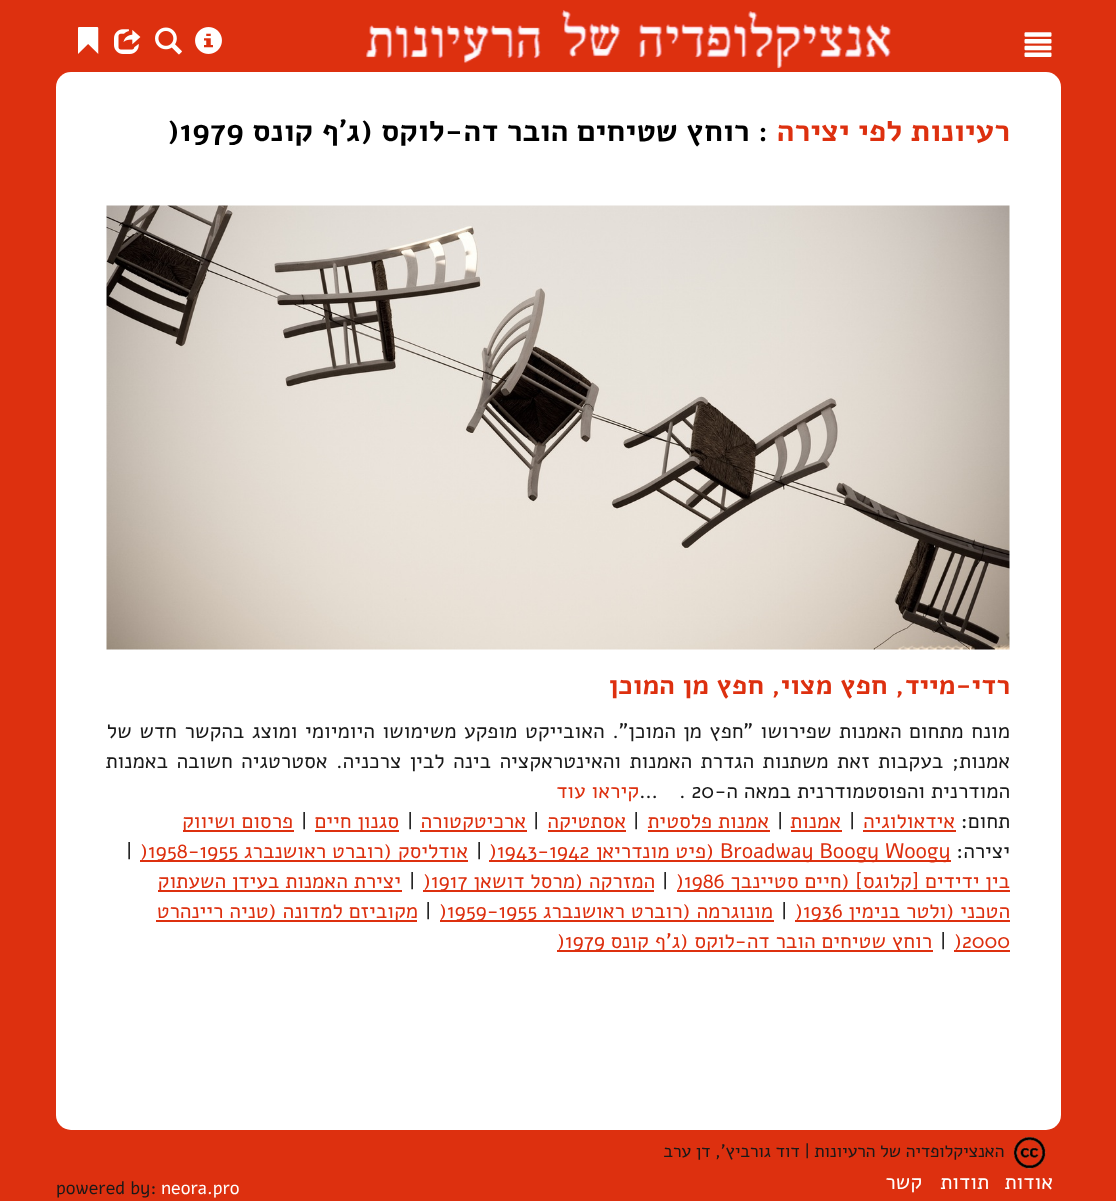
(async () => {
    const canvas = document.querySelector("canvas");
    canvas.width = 1116;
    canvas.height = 1201;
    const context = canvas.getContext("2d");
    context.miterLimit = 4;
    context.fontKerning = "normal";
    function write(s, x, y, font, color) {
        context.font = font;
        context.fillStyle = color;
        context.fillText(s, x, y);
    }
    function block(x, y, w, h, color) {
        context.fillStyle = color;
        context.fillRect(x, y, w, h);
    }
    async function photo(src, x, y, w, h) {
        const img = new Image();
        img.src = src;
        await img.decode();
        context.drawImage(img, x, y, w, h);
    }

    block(0, 0, 1116, 1201, "rgb(221, 48, 15)");
    await photo("media/1.png", 1024, 32, 28, 25);
    await photo("media/2.png", 366, 10, 525, 59);
    await photo("media/3.png", 195, 27, 27, 27);
    await photo("media/4.png", 155, 27, 27, 28);
    await photo("media/5.png", 114, 29, 27, 25);
    await photo("media/6.png", 78, 27, 21, 27);
    context.fillStyle = "rgb(255, 255, 255)";
    context.beginPath();
    context.roundRect(56, 72, 1005, 38, [15, 15, 0, 0]);
    context.fill();
    block(56, 110, 1005, 997, "rgb(255, 255, 255)");
    context.direction = "rtl";
    write("רעיונות לפי יצירה", 1010, 141, "bold 30.6px Alef", "rgb(221, 48, 15)");
    write(": רוחץ שטיחים הובר דה-לוקס (ג'ף קונס", 768, 141, "bold 30.6px Alef", "rgb(0, 0, 0)");
    context.direction = "ltr";
    write(")1979", 167, 141, "bold 30.6px Alef", "rgb(0, 0, 0)");
    await photo("media/7.png", 106, 205, 904, 445);
    context.direction = "rtl";
    write("רדי-מייד, חפץ מצוי, חפץ מן המוכן", 1010, 694, "bold 27px Alef", "rgb(221, 48, 15)");
    context.wordSpacing = "1.6px";
    write("מונח מתחום האמנות שפירושו \"חפץ מן המוכן\". האובייקט מופקע משימושו היומיומי ומוצג בהקשר חדש של", 1010, 738, "21px Alef", "rgb(25, 25, 25)");
    context.wordSpacing = "2.5px";
    write("אמנות; בעקבות זאת משתנות הגדרת האמנות והאינטראקציה בינה לבין צרכניה. אסטרטגיה חשובה באמנות", 1010, 768, "21px Alef", "rgb(25, 25, 25)");
    context.wordSpacing = "0px";
    write("המודרנית והפוסטמודרנית במאה ה-", 1010, 798, "21px Alef", "rgb(25, 25, 25)");
    context.direction = "ltr";
    write(". 20", 679, 798, "21px Alef", "rgb(25, 25, 25)");
    write("…", 639, 798, "21px Alef", "rgb(25, 25, 25)");
    context.direction = "rtl";
    write("קיראו עוד", 639, 798, "21px Alef", "rgb(221, 48, 15)");
    write("תחום:", 1010, 828, "21px Alef", "rgb(25, 25, 25)");
    write("אידאולוגיה", 955, 828, "21px Alef", "rgb(221, 48, 15)");
    block(863, 830, 93, 2, "rgb(221, 48, 15)");
    context.direction = "ltr";
    write("|", 849, 828, "21px Alef", "rgb(25, 25, 25)");
    context.direction = "rtl";
    write("אמנות", 841, 828, "21px Alef", "rgb(221, 48, 15)");
    block(791, 830, 51, 2, "rgb(221, 48, 15)");
    context.direction = "ltr";
    write("|", 777, 828, "21px Alef", "rgb(25, 25, 25)");
    context.direction = "rtl";
    write("אמנות פלסטית", 769, 828, "21px Alef", "rgb(221, 48, 15)");
    block(648, 830, 122, 2, "rgb(221, 48, 15)");
    context.direction = "ltr";
    write("|", 633, 828, "21px Alef", "rgb(25, 25, 25)");
    block(548, 830, 78, 2, "rgb(221, 48, 15)");
    context.direction = "rtl";
    write("אסתטיקה", 626, 828, "21px Alef", "rgb(221, 48, 15)");
    context.direction = "ltr";
    write("|", 533, 828, "21px Alef", "rgb(25, 25, 25)");
    block(420, 830, 107, 2, "rgb(221, 48, 15)");
    context.direction = "rtl";
    write("ארכיטקטורה", 526, 828, "21px Alef", "rgb(221, 48, 15)");
    context.direction = "ltr";
    write("|", 407, 828, "21px Alef", "rgb(25, 25, 25)");
    block(315, 830, 84, 2, "rgb(221, 48, 15)");
    context.direction = "rtl";
    write("סגנון חיים", 399, 828, "21px Alef", "rgb(221, 48, 15)");
    context.direction = "ltr";
    write("|", 301, 828, "21px Alef", "rgb(25, 25, 25)");
    block(183, 830, 111, 2, "rgb(221, 48, 15)");
    context.direction = "rtl";
    write("פרסום ושיווק", 293, 828, "21px Alef", "rgb(221, 48, 15)");
    write("יצירה:", 1010, 858, "21px Alef", "rgb(25, 25, 25)");
    block(489, 860, 462, 2, "rgb(221, 48, 15)");
    context.direction = "ltr";
    write("Broadway Boogy Woogy", 720, 858, "21px Alef", "rgb(221, 48, 15)");
    context.direction = "rtl";
    write("(פיט מונדריאן", 714, 858, "21px Alef", "rgb(221, 48, 15)");
    context.direction = "ltr";
    write(")1943-1942", 489, 858, "21px Alef", "rgb(221, 48, 15)");
    write("|", 476, 858, "21px Alef", "rgb(25, 25, 25)");
    block(140, 860, 328, 2, "rgb(221, 48, 15)");
    context.direction = "rtl";
    write("אודליסק (רוברט ראושנברג", 468, 858, "21px Alef", "rgb(221, 48, 15)");
    context.direction = "ltr";
    write(")1958-1955", 140, 858, "21px Alef", "rgb(221, 48, 15)");
    write("|", 126, 858, "21px Alef", "rgb(25, 25, 25)");
    block(677, 890, 333, 2, "rgb(221, 48, 15)");
    context.direction = "rtl";
    write("בין ידידים [קלוגס] (חיים סטיינבך", 1010, 888, "21px Alef", "rgb(221, 48, 15)");
    context.direction = "ltr";
    write(")1986", 676, 888, "21px Alef", "rgb(221, 48, 15)");
    write("|", 662, 888, "21px Alef", "rgb(25, 25, 25)");
    block(423, 890, 231, 2, "rgb(221, 48, 15)");
    context.direction = "rtl";
    write("המזרקה (מרסל דושאן", 655, 888, "21px Alef", "rgb(221, 48, 15)");
    context.direction = "ltr";
    write(")1917", 423, 888, "21px Alef", "rgb(221, 48, 15)");
    write("|", 409, 888, "21px Alef", "rgb(25, 25, 25)");
    block(158, 890, 244, 2, "rgb(221, 48, 15)");
    context.direction = "rtl";
    write("יצירת האמנות בעידן השעתוק", 401, 888, "21px Alef", "rgb(221, 48, 15)");
    block(795, 920, 215, 2, "rgb(221, 48, 15)");
    write("הטכני (ולטר בנימין", 1010, 918, "21px Alef", "rgb(221, 48, 15)");
    context.direction = "ltr";
    write(")1936", 795, 918, "21px Alef", "rgb(221, 48, 15)");
    write("|", 781, 918, "21px Alef", "rgb(25, 25, 25)");
    block(440, 920, 334, 2, "rgb(221, 48, 15)");
    context.direction = "rtl";
    write("מונוגרמה (רוברט ראושנברג", 773, 918, "21px Alef", "rgb(221, 48, 15)");
    context.direction = "ltr";
    write(")1959-1955", 439, 918, "21px Alef", "rgb(221, 48, 15)");
    write("|", 425, 918, "21px Alef", "rgb(25, 25, 25)");
    block(156, 920, 261, 2, "rgb(221, 48, 15)");
    context.direction = "rtl";
    write("מקוביזם למדונה (טניה ריינהרט", 418, 918, "21px Alef", "rgb(221, 48, 15)");
    block(954, 950, 56, 2, "rgb(221, 48, 15)");
    context.direction = "ltr";
    write(")2000", 954, 948, "21px Alef", "rgb(221, 48, 15)");
    write("|", 940, 948, "21px Alef", "rgb(25, 25, 25)");
    block(557, 950, 376, 2, "rgb(221, 48, 15)");
    context.direction = "rtl";
    write("רוחץ שטיחים הובר דה-לוקס (ג'ף קונס", 932, 948, "21px Alef", "rgb(221, 48, 15)");
    context.direction = "ltr";
    write(")1979", 557, 948, "21px Alef", "rgb(221, 48, 15)");
    context.fillStyle = "rgb(255, 255, 255)";
    context.beginPath();
    context.roundRect(56, 1107, 1005, 23, [0, 0, 15, 15]);
    context.fill();
    await photo("media/8.png", 1013, 1136, 33, 33);
    context.letterSpacing = "-0.3px";
    context.direction = "rtl";
    write("האנציקלופדיה של הרעיונות | דוד גורביץ', דן ערב", 1004, 1157, "18px Alef", "rgb(25, 25, 25)");
    context.letterSpacing = "0px";
    write("אודות", 1053, 1189, "21px Alef", "rgb(255, 255, 255)");
    write("תודות", 989, 1189, "21px Alef", "rgb(255, 255, 255)");
    write("קשר", 922, 1189, "21px Alef", "rgb(255, 255, 255)");
    context.direction = "ltr";
    write("neora.pro", 161, 1194, "18px Alef", "rgb(255, 255, 255)");
    write("powered by:", 56, 1194, "18px Alef", "rgb(25, 25, 25)");
})();
